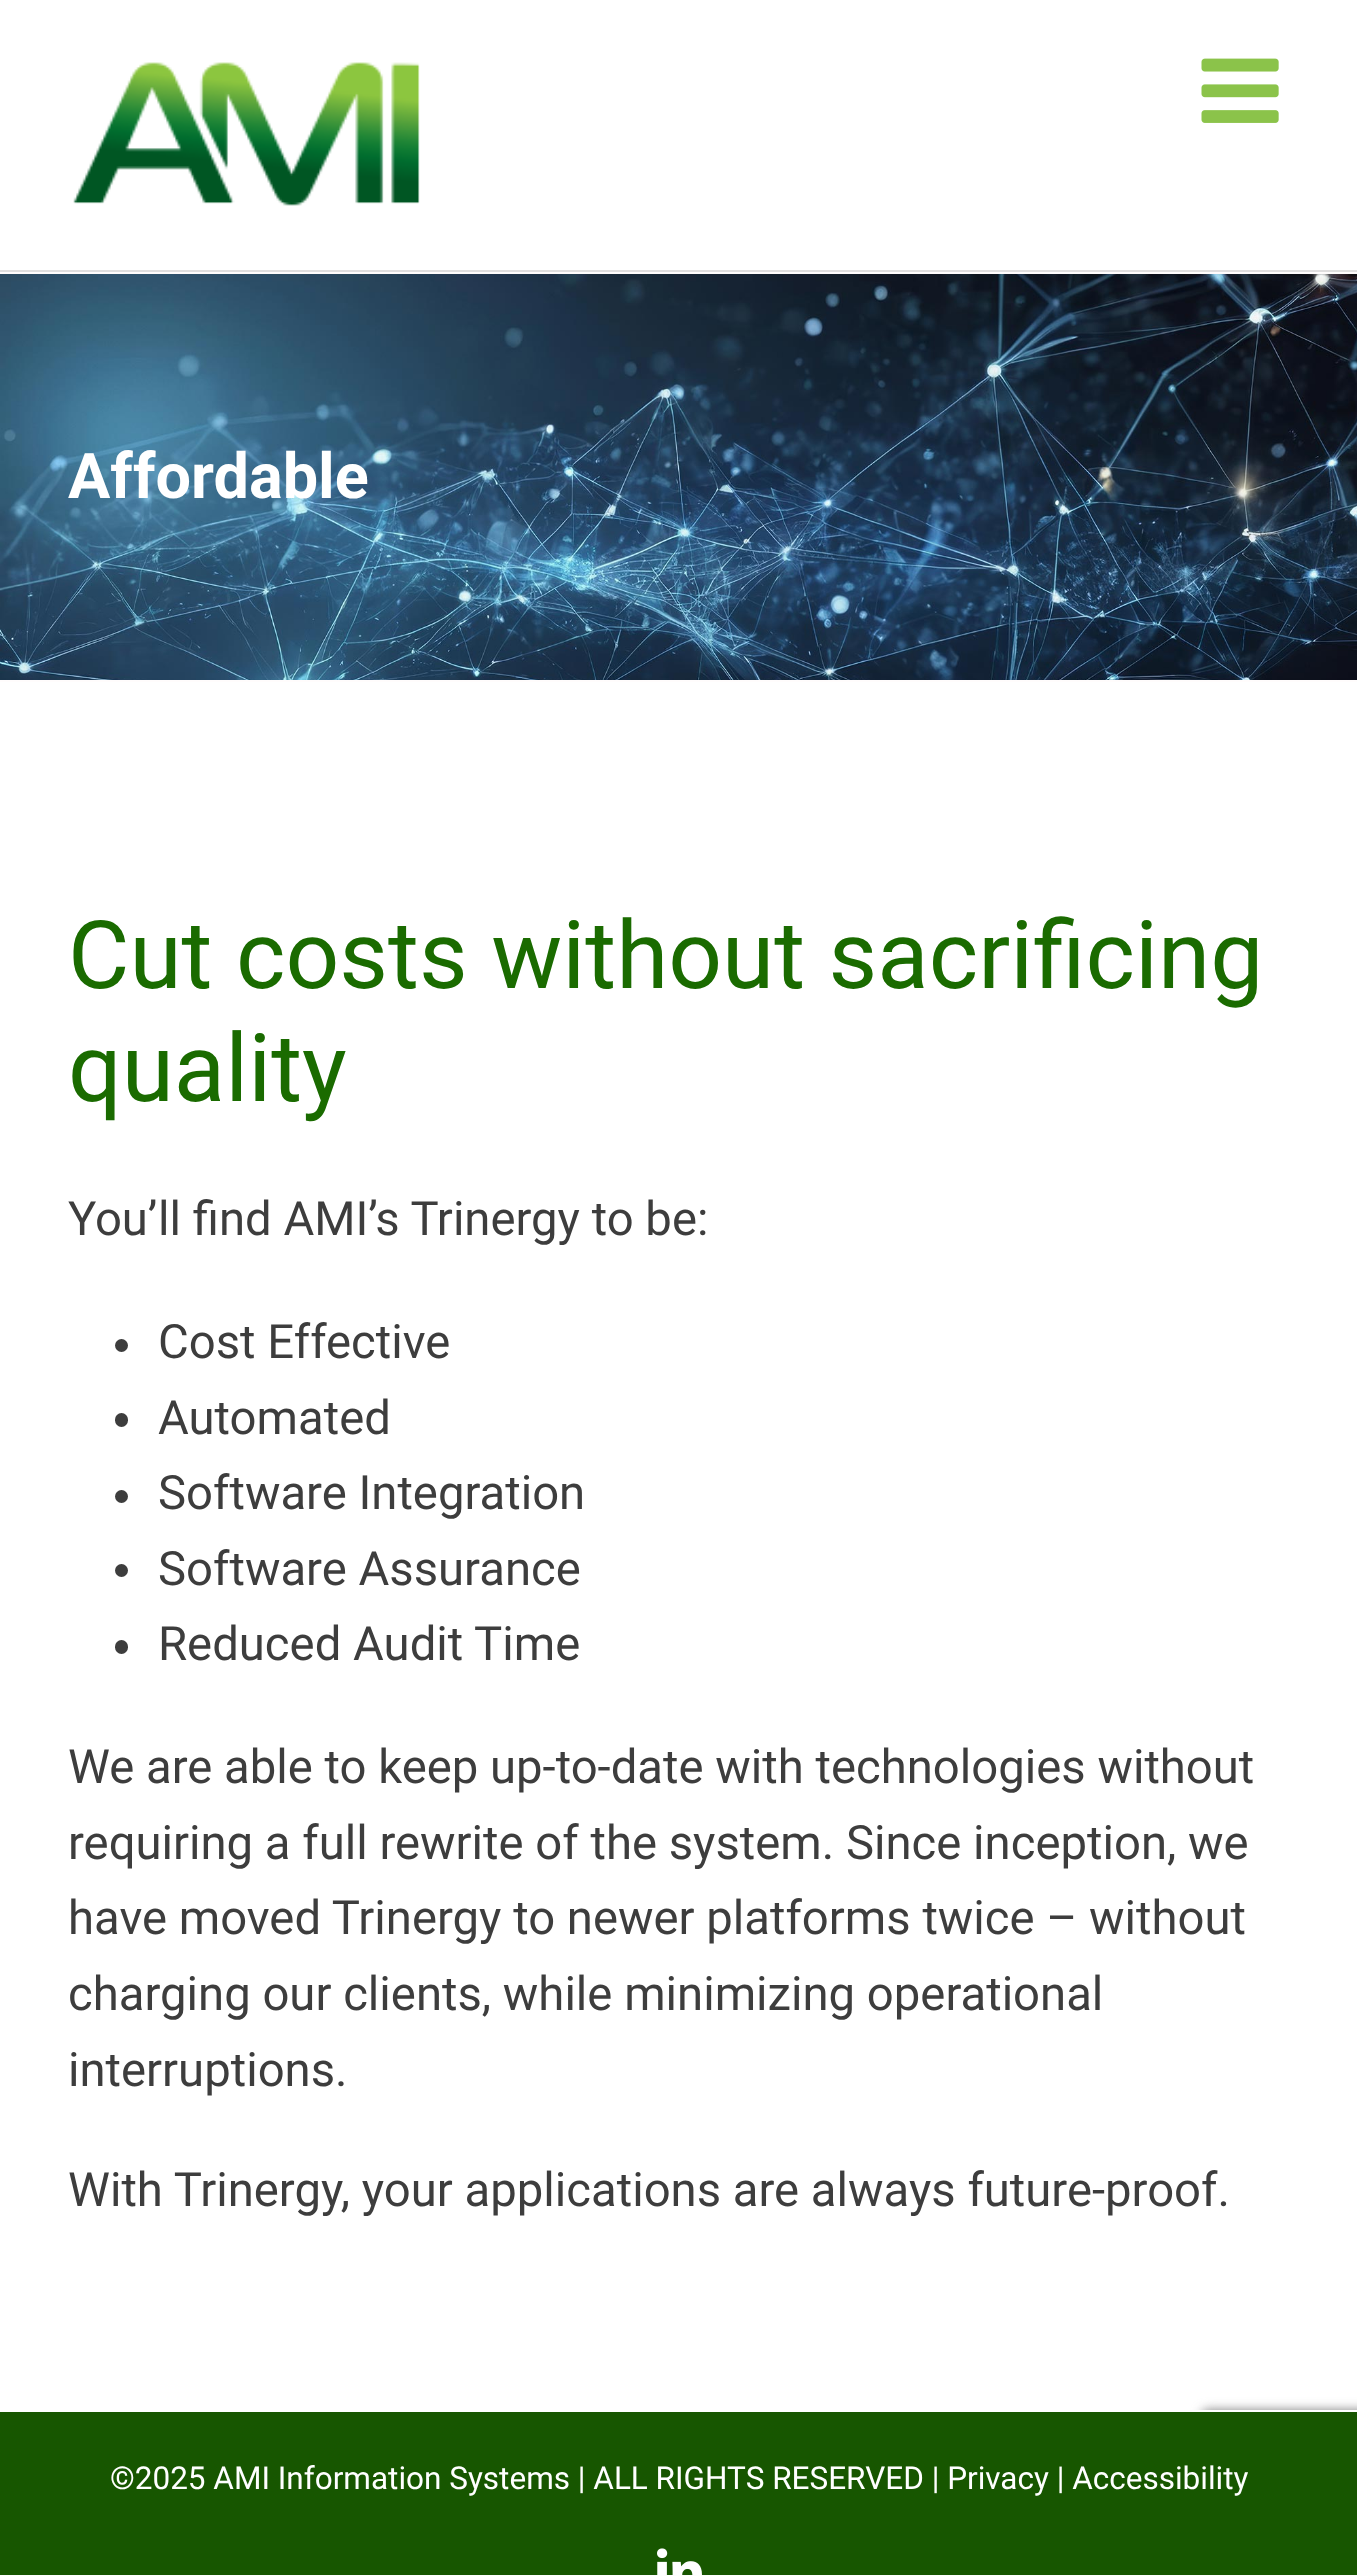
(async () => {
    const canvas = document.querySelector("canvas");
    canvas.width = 1357;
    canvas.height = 2575;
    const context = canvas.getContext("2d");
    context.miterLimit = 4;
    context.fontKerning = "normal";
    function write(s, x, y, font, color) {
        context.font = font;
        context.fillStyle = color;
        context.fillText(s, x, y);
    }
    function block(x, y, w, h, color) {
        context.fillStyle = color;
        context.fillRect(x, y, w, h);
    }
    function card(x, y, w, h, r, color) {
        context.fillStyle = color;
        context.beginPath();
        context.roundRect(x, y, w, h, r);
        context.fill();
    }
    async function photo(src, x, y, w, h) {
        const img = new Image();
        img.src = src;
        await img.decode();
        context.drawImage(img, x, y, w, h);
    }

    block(0, 0, 1357, 2575, "rgb(255, 255, 255)");
    block(0, 270, 1357, 2, "rgb(224, 222, 222)");
    await photo("media/1.png", 73, 62, 347, 144);
    await photo("media/2.png", 1201, 58, 78, 65);
    await photo("media/3.png", 0, 274, 1357, 406);
    block(0, 272, 1357, 2, "rgb(255, 252, 252)");
    block(0, 680, 1357, 2, "rgb(255, 252, 252)");
    write("Affordable", 68, 498, "bold 63px Roboto", "rgb(255, 255, 255)");
    write("Cut costs without sacrificing", 68, 988, "94.5px Roboto", "rgb(26, 107, 0)");
    write("quality", 68, 1101, "94.5px Roboto", "rgb(26, 107, 0)");
    write("You’ll find AMI’s Trinergy to be:", 68, 1235, "47.25px Roboto", "rgb(61, 61, 61)");
    context.beginPath();
    context.arc(121.5, 1345.5, 6.5, 0, Math.PI * 2);
    context.fill();
    write("Cost Effective", 158, 1358, "47.25px Roboto", "rgb(61, 61, 61)");
    card(115, 1413, 13, 14, 6.5, "rgb(61, 61, 61)");
    write("Automated", 158, 1434, "47.25px Roboto", "rgb(61, 61, 61)");
    context.beginPath();
    context.arc(121.5, 1496.5, 6.5, 0, Math.PI * 2);
    context.fill();
    write("Software Integration", 158, 1509, "47.25px Roboto", "rgb(61, 61, 61)");
    context.beginPath();
    context.arc(121.5, 1570.5, 6.5, 0, Math.PI * 2);
    context.fill();
    write("Software Assurance", 158, 1585, "47.25px Roboto", "rgb(61, 61, 61)");
    card(115, 1640, 13, 14, 6.5, "rgb(61, 61, 61)");
    write("Reduced Audit Time", 158, 1660, "47.25px Roboto", "rgb(61, 61, 61)");
    write("We are able to keep up-to-date with technologies without", 68, 1783, "47.25px Roboto", "rgb(61, 61, 61)");
    write("requiring a full rewrite of the system. Since inception, we", 68, 1859, "47.25px Roboto", "rgb(61, 61, 61)");
    write("have moved Trinergy to newer platforms twice – without", 68, 1934, "47.25px Roboto", "rgb(61, 61, 61)");
    write("charging our clients, while minimizing operational", 68, 2010, "47.25px Roboto", "rgb(61, 61, 61)");
    write("interruptions.", 68, 2086, "47.25px Roboto", "rgb(61, 61, 61)");
    write("With Trinergy, your applications are always future-proof.", 68, 2206, "47.25px Roboto", "rgb(61, 61, 61)");
    context.fillStyle = "rgb(128, 128, 128)";
    context.filter = "blur(5.5px)";
    context.beginPath();
    context.roundRect(1202, 2410, 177, 135, 5);
    context.fill();
    context.filter = "none";
    block(0, 2412, 1357, 163, "rgb(23, 86, 0)");
    block(1192, 2410, 165, 2, "rgb(255, 255, 255)");
    write("©2025 AMI Information Systems | ALL RIGHTS RESERVED | Privacy | Accessibility", 110, 2489, "31.5px Roboto", "rgb(255, 255, 255)");
    await photo("media/4.png", 657, 2548, 45, 27);
})();
